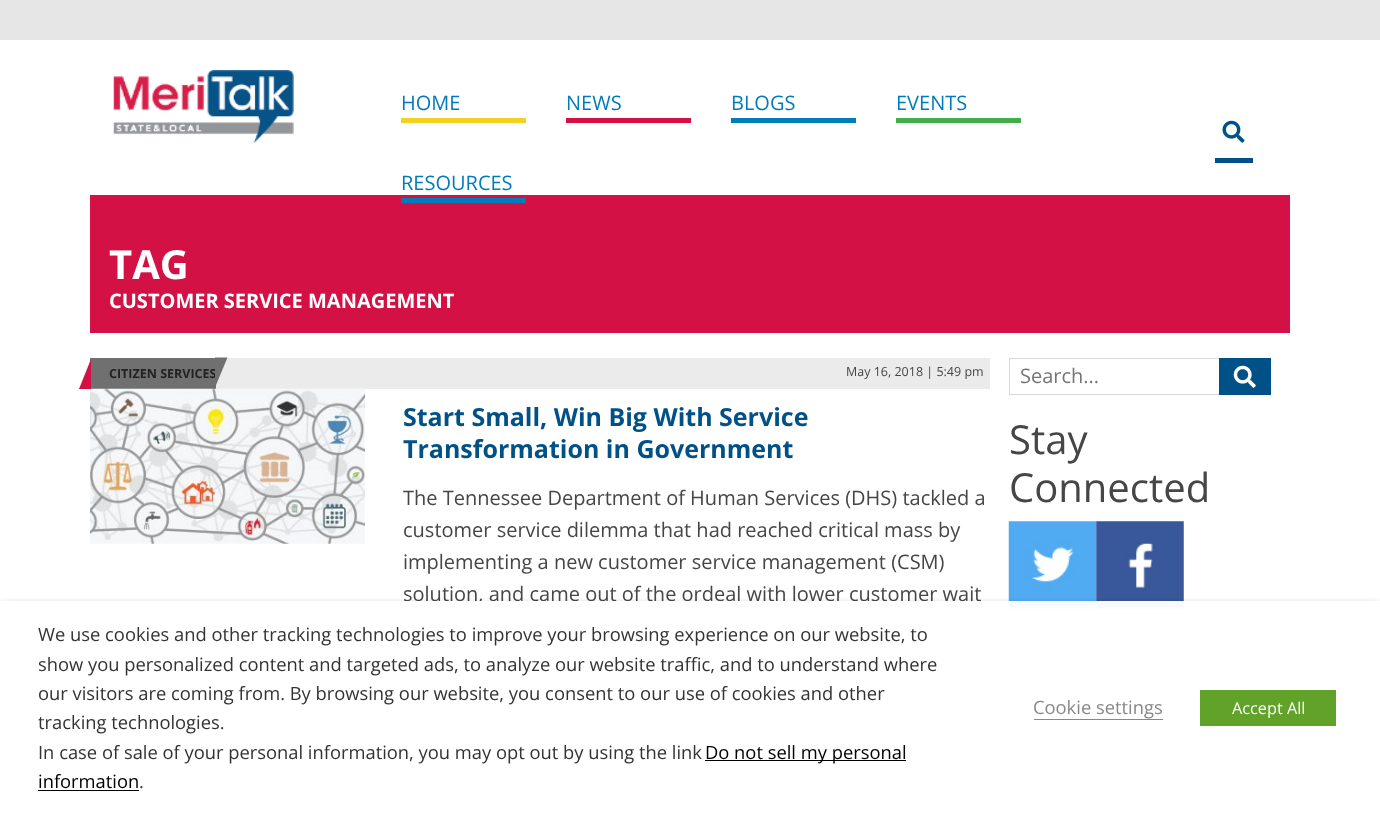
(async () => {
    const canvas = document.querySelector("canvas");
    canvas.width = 1380;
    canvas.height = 814;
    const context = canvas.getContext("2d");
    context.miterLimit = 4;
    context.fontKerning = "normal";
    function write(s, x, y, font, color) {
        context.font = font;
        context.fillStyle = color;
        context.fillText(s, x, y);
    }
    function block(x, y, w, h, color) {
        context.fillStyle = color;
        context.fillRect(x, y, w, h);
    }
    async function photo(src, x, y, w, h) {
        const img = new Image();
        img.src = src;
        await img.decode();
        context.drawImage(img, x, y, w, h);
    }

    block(0, 0, 1380, 814, "rgb(255, 255, 255)");
    block(0, 0, 1380, 40, "rgb(230, 230, 230)");
    await photo("media/1.png", 113, 70, 181, 73);
    block(401, 118, 125, 5, "rgb(241, 209, 33)");
    write("HOME", 401, 110, "20px Open Sans", "rgb(0, 124, 188)");
    block(566, 118, 125, 5, "rgb(211, 17, 69)");
    write("NEWS", 566, 110, "20px Open Sans", "rgb(0, 124, 188)");
    block(731, 118, 125, 5, "rgb(0, 125, 187)");
    write("BLOGS", 731, 110, "20px Open Sans", "rgb(0, 124, 188)");
    block(896, 118, 125, 5, "rgb(64, 174, 73)");
    write("EVENTS", 896, 110, "20px Open Sans", "rgb(0, 124, 188)");
    block(90, 195, 1200, 138, "rgb(211, 17, 69)");
    block(401, 198, 125, 5, "rgb(0, 124, 188)");
    write("RESOURCES", 401, 190, "20px Open Sans", "rgb(0, 124, 188)");
    block(1215, 158, 38, 5, "rgb(0, 80, 138)");
    await photo("media/2.png", 1222, 120, 23, 23);
    write("TAG", 109, 279, "bold 40px Open Sans", "rgb(255, 255, 255)");
    write("CUSTOMER SERVICE MANAGEMENT", 109, 308, "bold 20px Open Sans", "rgb(255, 255, 255)");
    block(216, 358, 774, 31, "rgb(235, 235, 235)");
    block(90, 358, 126, 31, "rgb(112, 112, 112)");
    await photo("media/3.png", 90, 388, 275, 156);
    context.fillStyle = "rgb(211, 17, 69)";
    context.beginPath();
    context.moveTo(91, 359);
    context.lineTo(91, 389);
    context.lineTo(79, 389);
    context.closePath();
    context.fill();
    write("CITIZEN SERVICES", 109, 378, "bold 12.5px Open Sans", "rgb(34, 34, 34)");
    context.fillStyle = "rgb(112, 112, 112)";
    context.beginPath();
    context.moveTo(215, 387.5);
    context.lineTo(215, 357.5);
    context.lineTo(227.5, 357.5);
    context.closePath();
    context.fill();
    write("May 16, 2018 | 5:49 pm", 846, 376, "12.5px Open Sans", "rgb(70, 70, 70)");
    write("Start Small, Win Big With Service", 403, 426, "bold 25px Open Sans", "rgb(0, 81, 136)");
    write("Transformation in Government", 403, 458, "bold 25px Open Sans", "rgb(0, 81, 136)");
    write("The Tennessee Department of Human Services (DHS) tackled a", 403, 505, "20px Open Sans", "rgb(70, 70, 70)");
    write("customer service dilemma that had reached critical mass by", 403, 537, "20px Open Sans", "rgb(70, 70, 70)");
    write("implementing a new customer service management (CSM)", 403, 569, "20px Open Sans", "rgb(70, 70, 70)");
    write("solution, and came out of the ordeal with lower customer wait", 403, 601, "20px Open Sans", "rgb(70, 70, 70)");
    block(1009, 358, 210, 1, "rgb(217, 217, 217)");
    block(1009, 394, 210, 1, "rgb(217, 217, 217)");
    block(1009, 358, 1, 37, "rgb(217, 217, 217)");
    write("Search...", 1020, 383, "20px Open Sans", "rgb(117, 117, 117)");
    block(1219, 358, 52, 37, "rgb(0, 81, 136)");
    await photo("media/4.png", 1233, 365, 23, 23);
    write("Stay", 1009, 454, "40px Open Sans", "rgb(70, 70, 70)");
    write("Connected", 1009, 502, "40px Open Sans", "rgb(70, 70, 70)");
    await photo("media/5.png", 1008, 521, 89, 88);
    await photo("media/6.png", 1096, 521, 88, 88);
    context.save();
    context.beginPath();
    context.rect(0, 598, 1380, 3);
    context.clip();
    context.fillStyle = "rgba(0, 0, 0, 0.5)";
    context.filter = "blur(6px)";
    context.beginPath();
    context.rect(0, 608, 1380, 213);
    context.fill();
    context.filter = "none";
    context.restore();
    block(2, 601, 1376, 8, "rgba(255, 255, 255, 0.97)");
    write("We use cookies and other tracking technologies to improve your browsing experience on our website, to", 38, 641, "18.35px Open Sans", "rgb(51, 51, 51)");
    write("show you personalized content and targeted ads, to analyze our website traffic, and to understand where", 38, 671, "18.35px Open Sans", "rgb(51, 51, 51)");
    write("our visitors are coming from. By browsing our website, you consent to our use of cookies and other", 38, 700, "18.35px Open Sans", "rgb(51, 51, 51)");
    write("tracking technologies.", 38, 729, "18.35px Open Sans", "rgb(51, 51, 51)");
    write("In case of sale of your personal information, you may opt out by using the link", 38, 759, "18.35px Open Sans", "rgb(51, 51, 51)");
    block(705, 760, 201, 1, "rgb(0, 0, 0)");
    write("Do not sell my personal", 705, 759, "18.35px Open Sans", "rgb(0, 0, 0)");
    write("information", 38, 788, "18.35px Open Sans", "rgb(0, 0, 0)");
    block(38, 790, 101, 1, "rgb(0, 0, 0)");
    write(".", 139, 788, "18.35px Open Sans", "rgb(51, 51, 51)");
    write("Cookie settings", 1033, 714, "18.35px Open Sans", "rgb(137, 136, 136)");
    block(1034, 719, 129, 1, "rgb(137, 136, 136)");
    block(1200, 690, 136, 36, "rgb(97, 162, 41)");
    write("Accept All", 1232, 714, "16.25px Open Sans", "rgb(255, 255, 255)");
})();
